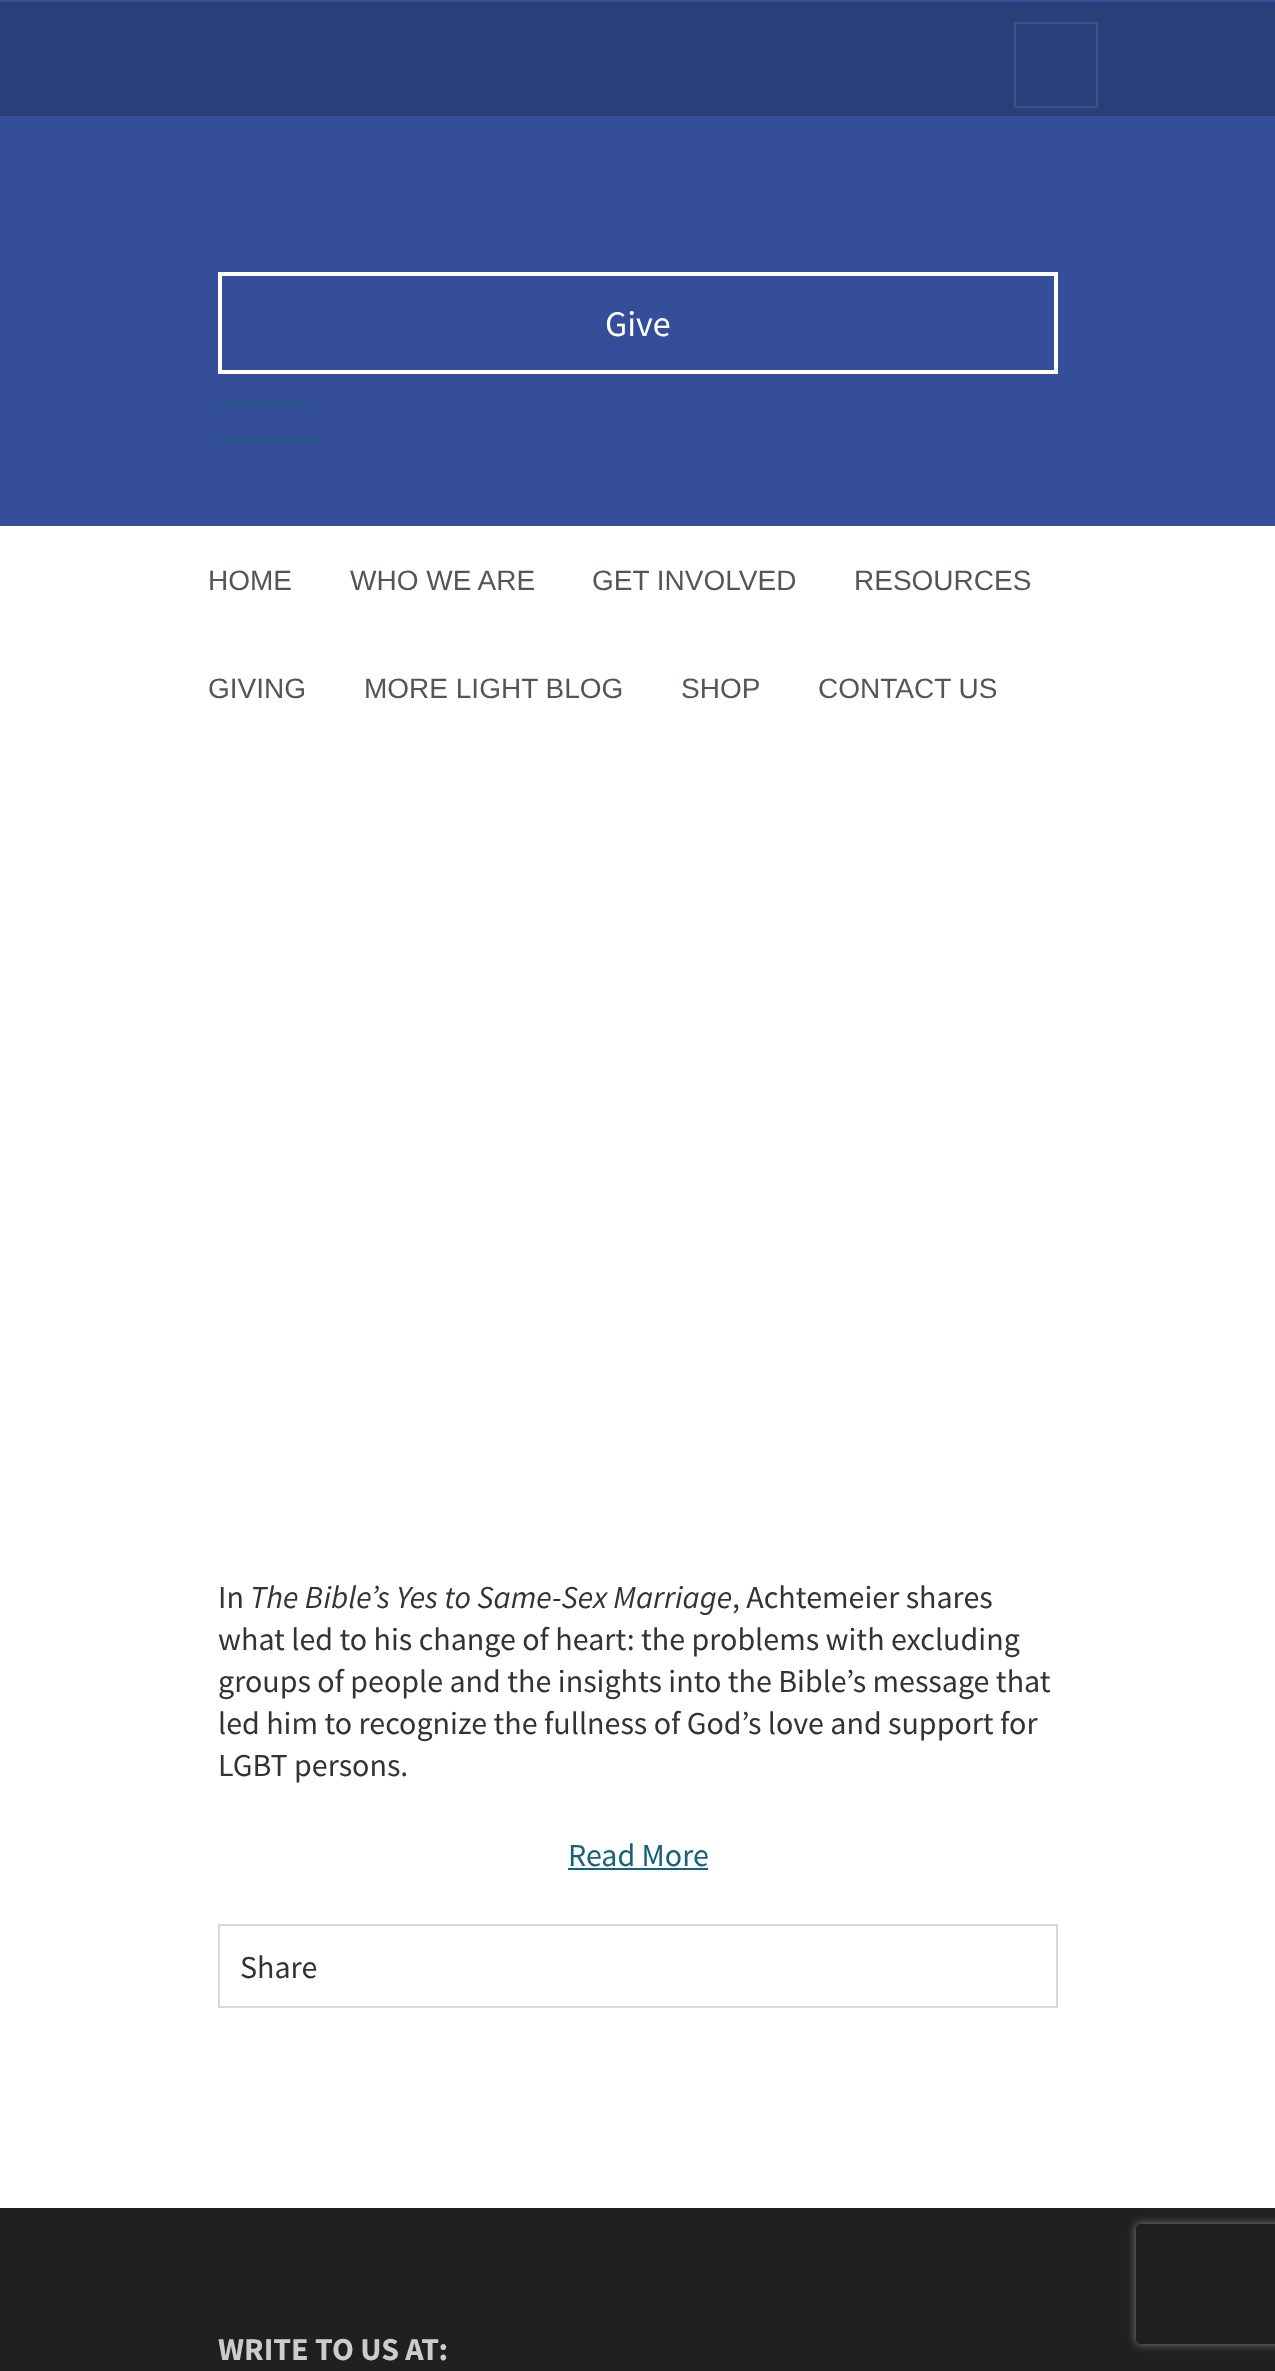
(async () => {
    const canvas = document.querySelector("canvas");
    canvas.width = 1275;
    canvas.height = 2371;
    const context = canvas.getContext("2d");
    context.miterLimit = 4;
    context.fontKerning = "normal";
    function write(s, x, y, font, color) {
        context.font = font;
        context.fillStyle = color;
        context.fillText(s, x, y);
    }
    function block(x, y, w, h, color) {
        context.fillStyle = color;
        context.fillRect(x, y, w, h);
    }

    block(0, 0, 1275, 2371, "rgb(255, 255, 255)");
    block(0, 0, 1275, 526, "rgb(53, 78, 153)");
    block(0, 2, 1275, 114, "rgb(42, 62, 122)");
    context.strokeStyle = "rgb(63, 81, 135)";
    context.lineWidth = 2;
    context.strokeRect(1015, 23, 82, 84);
    context.strokeStyle = "rgb(255, 255, 255)";
    context.lineWidth = 4;
    context.strokeRect(220, 274, 836, 98);
    write("Give", 605, 336, "36px Source Sans Pro", "rgb(255, 255, 255)");
    block(218, 404, 92, 2, "rgb(22, 98, 122)");
    block(218, 440, 104, 2, "rgb(22, 98, 122)");
    write("HOME", 208, 590, "28px Liberation Sans", "rgb(81, 86, 89)");
    write("WHO WE ARE", 350, 590, "28px Liberation Sans", "rgb(81, 86, 89)");
    write("GET INVOLVED", 592, 590, "28px Liberation Sans", "rgb(81, 86, 89)");
    write("RESOURCES", 854, 590, "28px Liberation Sans", "rgb(81, 86, 89)");
    write("GIVING", 208, 698, "28px Liberation Sans", "rgb(81, 86, 89)");
    write("MORE LIGHT BLOG", 364, 698, "28px Liberation Sans", "rgb(81, 86, 89)");
    write("SHOP", 681, 698, "28px Liberation Sans", "rgb(81, 86, 89)");
    write("CONTACT US", 818, 698, "28px Liberation Sans", "rgb(81, 86, 89)");
    write("In", 218, 1608, "32px Source Sans Pro", "rgb(51, 51, 51)");
    write("The Bible’s Yes to Same-Sex Marriage", 250, 1608, "italic 32px Source Sans Pro", "rgb(51, 51, 51)");
    write(", Achtemeier shares", 732, 1608, "32px Source Sans Pro", "rgb(51, 51, 51)");
    write("what led to his change of heart: the problems with excluding", 218, 1650, "32px Source Sans Pro", "rgb(51, 51, 51)");
    write("groups of people and the insights into the Bible’s message that", 218, 1692, "32px Source Sans Pro", "rgb(51, 51, 51)");
    write("led him to recognize the fullness of God’s love and support for", 218, 1734, "32px Source Sans Pro", "rgb(51, 51, 51)");
    write("LGBT persons.", 218, 1776, "32px Source Sans Pro", "rgb(51, 51, 51)");
    write("Read More", 568, 1866, "32px Source Sans Pro", "rgb(22, 98, 122)");
    block(568, 1868, 140, 2, "rgb(22, 98, 122)");
    context.strokeStyle = "rgb(217, 217, 217)";
    context.lineWidth = 2;
    context.strokeRect(219, 1925, 838, 82);
    write("Share", 240, 1978, "32px Source Sans Pro", "rgb(51, 51, 51)");
    block(0, 2208, 1275, 163, "rgb(32, 32, 32)");
    write("WRITE TO US AT:", 218, 2360, "bold 32px Source Sans Pro", "rgb(204, 204, 204)");
    context.save();
    context.beginPath();
    context.moveTo(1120, 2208);
    context.lineTo(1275, 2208);
    context.lineTo(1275, 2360);
    context.lineTo(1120, 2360);
    context.closePath();
    context.moveTo(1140, 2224);
    context.lineTo(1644, 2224);
    context.bezierCurveTo(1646, 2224, 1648, 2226, 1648, 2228);
    context.lineTo(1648, 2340);
    context.bezierCurveTo(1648, 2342, 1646, 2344, 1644, 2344);
    context.lineTo(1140, 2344);
    context.bezierCurveTo(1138, 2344, 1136, 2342, 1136, 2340);
    context.lineTo(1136, 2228);
    context.bezierCurveTo(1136, 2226, 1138, 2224, 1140, 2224);
    context.closePath();
    context.clip("evenodd");
    context.fillStyle = "rgb(128, 128, 128)";
    context.filter = "blur(5px)";
    context.beginPath();
    context.roundRect(1136, 2224, 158, 120, 4);
    context.fill();
    context.filter = "none";
    context.restore();
})();
